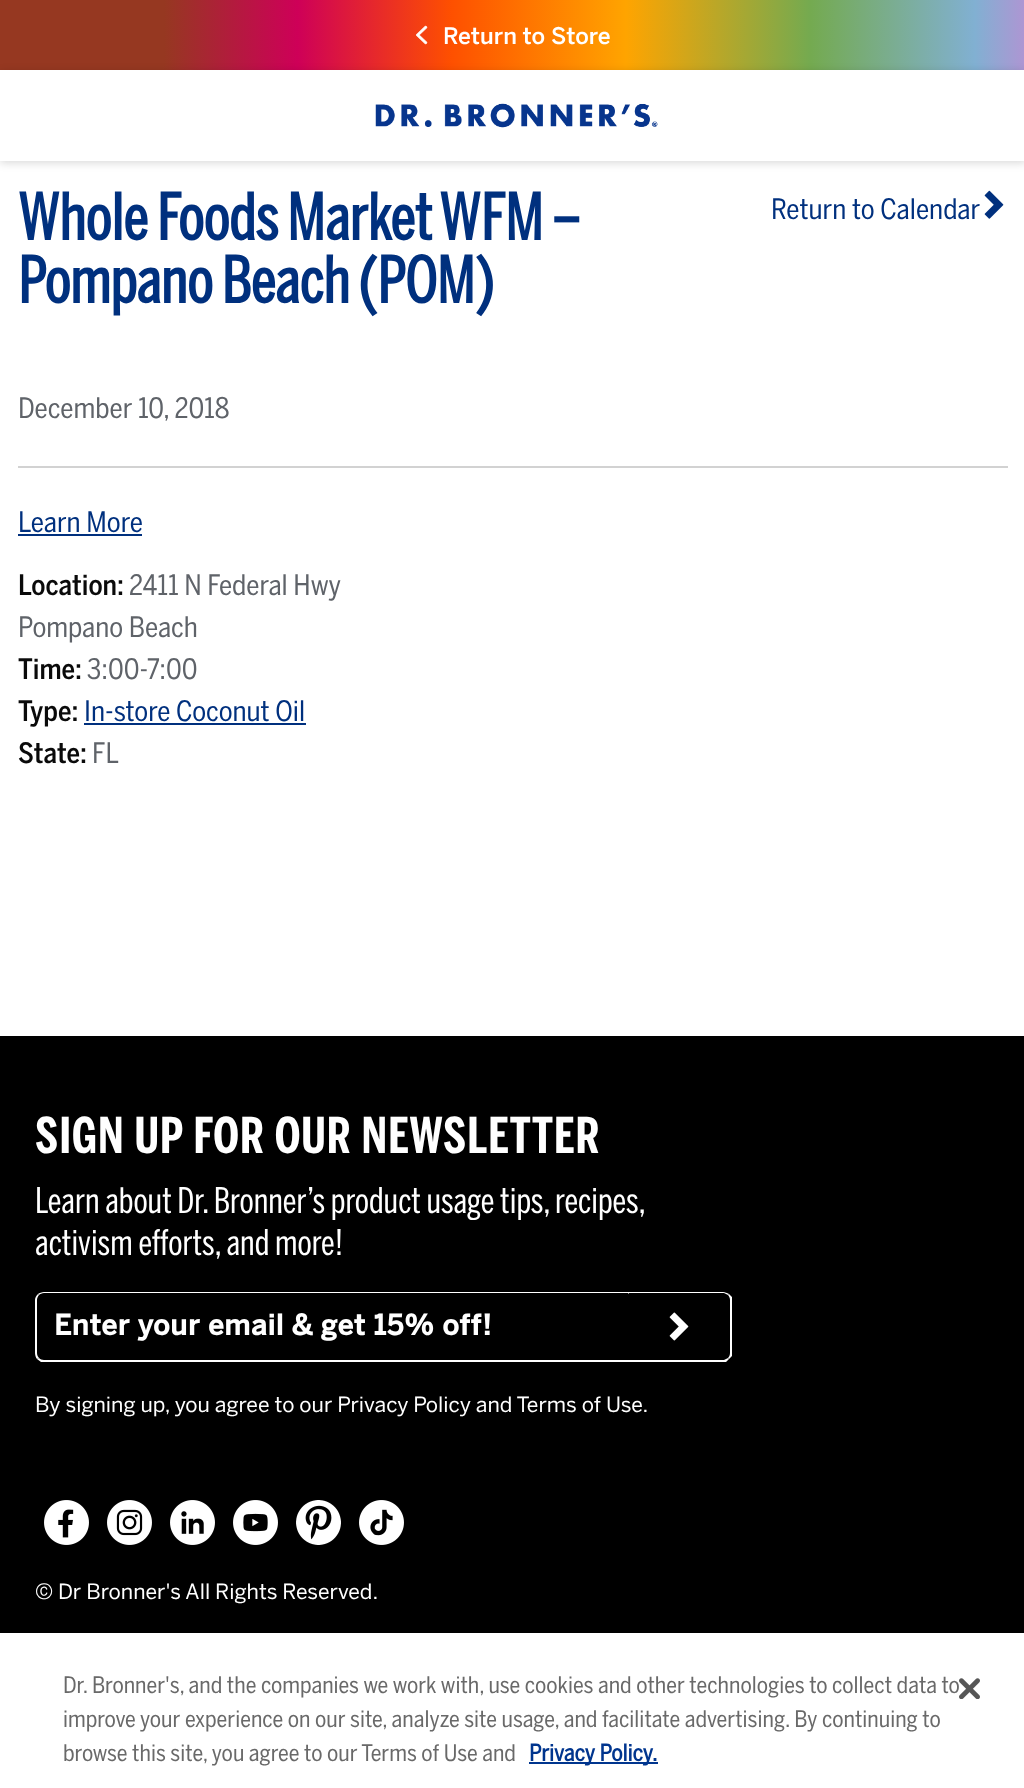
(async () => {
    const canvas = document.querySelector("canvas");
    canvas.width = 1024;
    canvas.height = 1788;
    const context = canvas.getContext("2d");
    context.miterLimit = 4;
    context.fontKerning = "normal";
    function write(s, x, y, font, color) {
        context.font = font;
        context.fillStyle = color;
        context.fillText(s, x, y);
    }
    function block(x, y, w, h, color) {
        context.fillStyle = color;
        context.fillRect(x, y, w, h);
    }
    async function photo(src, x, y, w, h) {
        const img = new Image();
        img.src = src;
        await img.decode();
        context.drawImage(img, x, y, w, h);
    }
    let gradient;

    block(0, 0, 1024, 1788, "rgb(255, 255, 255)");
    await photo("media/1.png", 0, 65, 1024, 5);
    gradient = context.createLinearGradient(0, 32, 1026, 32);
    gradient.addColorStop(0.16, "rgb(150, 56, 33)");
    gradient.addColorStop(0.29, "rgb(206, 0, 88)");
    gradient.addColorStop(0.44, "rgb(254, 80, 0)");
    gradient.addColorStop(0.61, "rgb(255, 164, 0)");
    gradient.addColorStop(0.79, "rgb(116, 170, 80)");
    gradient.addColorStop(0.95, "rgb(129, 176, 210)");
    gradient.addColorStop(1, "rgb(175, 149, 211)");
    context.fillStyle = gradient;
    context.fillRect(0, 0, 1024, 65);
    await photo("media/2.png", 416, 25, 12, 20);
    write("Return to Store", 443, 44, "500 22.75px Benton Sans", "rgb(255, 255, 255)");
    context.save();
    context.beginPath();
    context.moveTo(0, 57);
    context.lineTo(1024, 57);
    context.lineTo(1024, 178);
    context.lineTo(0, 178);
    context.closePath();
    context.moveTo(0, 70);
    context.lineTo(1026, 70);
    context.lineTo(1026, 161);
    context.lineTo(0, 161);
    context.closePath();
    context.clip("evenodd");
    context.fillStyle = "rgba(0, 0, 0, 0.15)";
    context.filter = "blur(4.5px)";
    context.beginPath();
    context.rect(0, 72, 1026, 91);
    context.fill();
    context.filter = "none";
    context.restore();
    await photo("media/3.png", 375, 103, 283, 25);
    context.wordSpacing = "-1.5px";
    write("Whole Foods Market WFM –", 18, 240, "bold 63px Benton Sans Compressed", "rgb(0, 48, 126)");
    write("Pompano Beach (POM)", 18, 303, "bold 63px Benton Sans Compressed", "rgb(0, 48, 126)");
    context.wordSpacing = "0px";
    write("Return to Calendar", 771, 219, "28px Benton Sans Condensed", "rgb(0, 48, 126)");
    await photo("media/4.png", 984, 190, 20, 29);
    write("December 10, 2018", 18, 418, "28px Benton Sans Condensed", "rgb(95, 99, 105)");
    block(18, 466, 990, 2, "rgb(210, 210, 210)");
    write("Learn More", 18, 532, "28px Benton Sans Condensed", "rgb(0, 48, 126)");
    block(18, 534, 124, 2, "rgb(0, 48, 126)");
    write("Location:", 18, 595, "500 28px Benton Sans Condensed", "rgb(10, 10, 10)");
    write("2411 N Federal Hwy", 129, 595, "28px Benton Sans Condensed", "rgb(95, 99, 105)");
    write("Pompano Beach", 18, 637, "28px Benton Sans Condensed", "rgb(95, 99, 105)");
    write("Time:", 18, 679, "500 28px Benton Sans Condensed", "rgb(10, 10, 10)");
    write("3:00-7:00", 87, 679, "28px Benton Sans Condensed", "rgb(95, 99, 105)");
    write("Type:", 18, 721, "500 28px Benton Sans Condensed", "rgb(10, 10, 10)");
    write("In-store Coconut Oil", 84, 721, "28px Benton Sans Condensed", "rgb(0, 48, 126)");
    block(84, 723, 222, 2, "rgb(0, 48, 126)");
    write("State:", 18, 763, "500 28px Benton Sans Condensed", "rgb(10, 10, 10)");
    write("FL", 92, 763, "28px Benton Sans Condensed", "rgb(95, 99, 105)");
    block(0, 1036, 1024, 597, "rgb(0, 0, 0)");
    context.letterSpacing = "1px";
    write("SIGN UP FOR OUR NEWSLETTER", 35, 1153, "bold 49px 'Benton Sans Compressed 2'", "rgb(255, 255, 255)");
    context.letterSpacing = "0px";
    context.wordSpacing = "-0.25px";
    write("Learn about Dr. Bronner’s product usage tips, recipes,", 35, 1213, "35px Benton Sans Compressed", "rgb(255, 255, 255)");
    context.wordSpacing = "0px";
    write("activism efforts, and more!", 35, 1255, "35px Benton Sans Compressed", "rgb(255, 255, 255)");
    context.beginPath();
    context.moveTo(44, 1292);
    context.bezierCurveTo(42, 1292, 39, 1293, 38, 1294);
    context.lineTo(39, 1295);
    context.bezierCurveTo(40, 1294, 42, 1293, 44, 1293);
    context.lineTo(628, 1293);
    context.lineTo(628, 1294);
    context.lineTo(630, 1292);
    context.closePath();
    context.fill();
    context.beginPath();
    context.moveTo(630, 1362);
    context.lineTo(41, 1362);
    context.lineTo(37, 1359);
    context.lineTo(39, 1358);
    context.bezierCurveTo(40, 1359, 42, 1360, 44, 1360);
    context.lineTo(628, 1360);
    context.closePath();
    context.fill();
    context.beginPath();
    context.moveTo(35, 1300);
    context.lineTo(35, 1353);
    context.bezierCurveTo(35, 1355, 36, 1358, 37, 1359);
    context.lineTo(39, 1358);
    context.bezierCurveTo(38, 1357, 37, 1355, 37, 1353);
    context.lineTo(37, 1300);
    context.bezierCurveTo(37, 1298, 38, 1296, 39, 1295);
    context.lineTo(38, 1294);
    context.bezierCurveTo(36, 1296, 35, 1298, 35, 1300);
    context.closePath();
    context.fill();
    context.letterSpacing = "0.7px";
    write("Enter your email & get 15% off!", 54, 1335, "bold 28px Benton Sans", "rgb(255, 255, 255)");
    context.beginPath();
    context.moveTo(628, 1293);
    context.lineTo(724, 1293);
    context.lineTo(728, 1295);
    context.lineTo(729, 1294);
    context.bezierCurveTo(727, 1293, 725, 1292, 723, 1292);
    context.lineTo(627, 1292);
    context.closePath();
    context.fill();
    context.beginPath();
    context.moveTo(729, 1294);
    context.lineTo(732, 1297);
    context.lineTo(732, 1356);
    context.lineTo(729, 1359);
    context.lineTo(728, 1358);
    context.bezierCurveTo(729, 1357, 730, 1355, 730, 1353);
    context.lineTo(730, 1300);
    context.bezierCurveTo(730, 1298, 729, 1296, 728, 1295);
    context.closePath();
    context.fill();
    context.beginPath();
    context.moveTo(729, 1359);
    context.lineTo(726, 1362);
    context.lineTo(626, 1362);
    context.lineTo(628, 1360);
    context.lineTo(724, 1360);
    context.lineTo(728, 1358);
    context.closePath();
    context.fill();
    await photo("media/5.png", 669, 1312, 20, 29);
    context.letterSpacing = "0px";
    write("By signing up, you agree to our Privacy Policy and Terms of Use.", 35, 1412, "21px Benton Sans", "rgb(255, 255, 255)");
    await photo("media/6.png", 44, 1500, 45, 45);
    await photo("media/7.png", 107, 1500, 45, 45);
    await photo("media/8.png", 170, 1500, 45, 45);
    await photo("media/9.png", 233, 1500, 45, 45);
    await photo("media/10.png", 296, 1500, 45, 45);
    await photo("media/11.png", 359, 1500, 45, 45);
    write("© Dr Bronner's All Rights Reserved.", 35, 1599, "21px Benton Sans", "rgb(255, 255, 255)");
    write("Dr. Bronner's, and the companies we work with, use cookies and other technologies to collect data to", 63, 1693, "22.75px Benton Sans Condensed", "rgb(105, 105, 105)");
    write("improve your experience on our site, analyze site usage, and facilitate advertising. By continuing to", 63, 1727, "22.75px Benton Sans Condensed", "rgb(105, 105, 105)");
    write("browse this site, you agree to our Terms of Use and", 63, 1761, "22.75px Benton Sans Condensed", "rgb(105, 105, 105)");
    block(529, 1762, 129, 2, "rgb(0, 53, 142)");
    write("Privacy Policy.", 529, 1761, "bold 22.75px Benton Sans Condensed", "rgb(0, 53, 142)");
    await photo("media/12.png", 959, 1678, 21, 21);
})();
